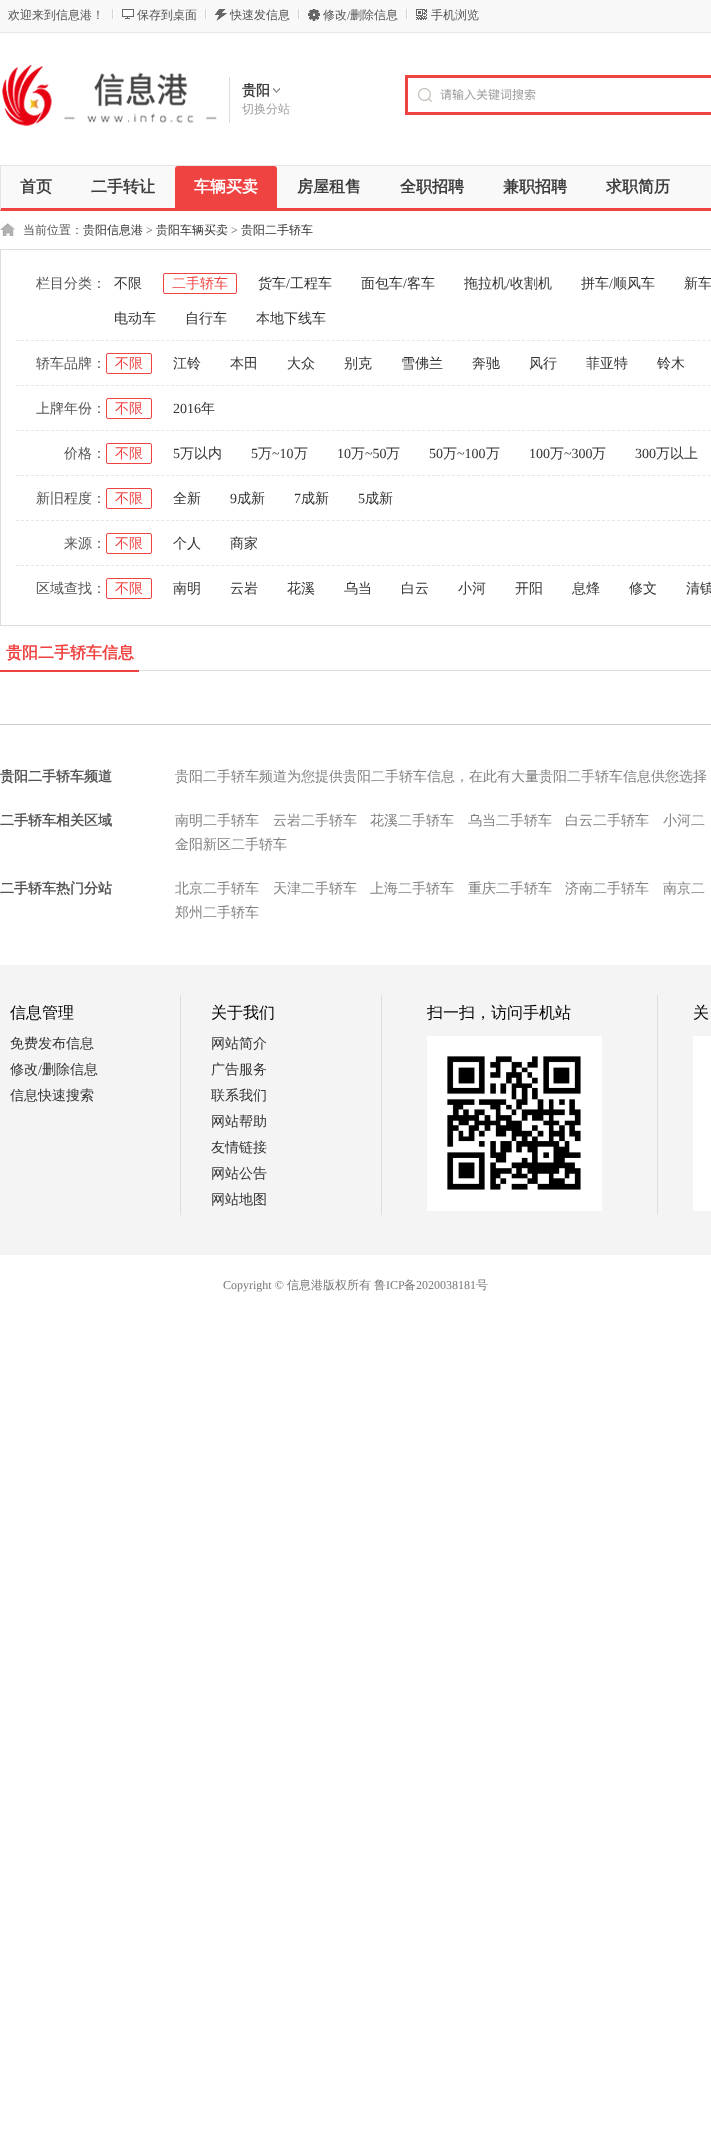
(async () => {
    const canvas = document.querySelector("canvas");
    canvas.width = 711;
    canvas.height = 2143;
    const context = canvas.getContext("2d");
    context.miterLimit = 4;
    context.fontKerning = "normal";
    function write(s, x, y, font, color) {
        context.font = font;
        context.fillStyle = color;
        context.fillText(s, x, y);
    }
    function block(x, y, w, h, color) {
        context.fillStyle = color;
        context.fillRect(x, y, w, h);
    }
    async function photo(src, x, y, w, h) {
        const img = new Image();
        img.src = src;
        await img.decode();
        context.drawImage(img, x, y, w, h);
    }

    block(0, 0, 711, 2143, "rgb(255, 255, 255)");
    block(0, 0, 711, 32, "rgb(248, 248, 248)");
    block(0, 32, 711, 1, "rgb(232, 232, 232)");
    write("欢迎来到信息港！", 8, 19, "500 12px WenQuanYi Zen Hei", "rgb(85, 85, 85)");
    block(113, 9, 1, 10, "rgb(255, 255, 255)");
    block(112, 9, 1, 10, "rgb(212, 212, 212)");
    await photo("media/1.png", 122, 9, 12, 10);
    write("保存到桌面", 137, 19, "500 12px WenQuanYi Zen Hei", "rgb(85, 85, 85)");
    block(206, 9, 1, 10, "rgb(255, 255, 255)");
    block(205, 9, 1, 10, "rgb(212, 212, 212)");
    await photo("media/2.png", 215, 9, 12, 12);
    write("快速发信息", 230, 19, "500 12px WenQuanYi Zen Hei", "rgb(85, 85, 85)");
    block(299, 9, 1, 10, "rgb(255, 255, 255)");
    block(298, 9, 1, 10, "rgb(212, 212, 212)");
    await photo("media/3.png", 308, 9, 12, 12);
    write("修改", 323, 19, "500 12px WenQuanYi Zen Hei", "rgb(85, 85, 85)");
    write("/", 347, 19, "12px Liberation Serif", "rgb(85, 85, 85)");
    write("删除信息", 350, 19, "500 12px WenQuanYi Zen Hei", "rgb(85, 85, 85)");
    block(407, 9, 1, 10, "rgb(255, 255, 255)");
    block(406, 9, 1, 10, "rgb(212, 212, 212)");
    await photo("media/4.png", 416, 9, 11, 11);
    write("手机浏览", 431, 19, "500 12px WenQuanYi Zen Hei", "rgb(85, 85, 85)");
    await photo("media/5.png", 2, 65, 215, 61);
    block(229, 77, 1, 46, "rgb(221, 221, 221)");
    write("贵阳", 242, 95, "bold 14px WenQuanYi Zen Hei", "rgb(61, 61, 61)");
    await photo("media/6.png", 273, 88, 7, 5);
    write("切换分站", 242, 113, "500 12px WenQuanYi Zen Hei", "rgb(157, 157, 157)");
    await photo("media/7.png", 418, 88, 14, 14);
    block(405, 75, 306, 3, "rgb(238, 67, 65)");
    block(405, 112, 306, 3, "rgb(238, 67, 65)");
    block(405, 75, 3, 40, "rgb(238, 67, 65)");
    write("请输入关键词搜索", 440, 99, "12px Noto Sans CJK SC", "rgb(157, 157, 157)");
    block(1, 166, 710, 42, "rgb(249, 249, 249)");
    block(0, 165, 711, 1, "rgb(228, 228, 228)");
    context.fillStyle = "rgb(238, 67, 65)";
    context.beginPath();
    context.moveTo(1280, 211);
    context.lineTo(0, 211);
    context.lineTo(1, 208);
    context.lineTo(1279, 208);
    context.closePath();
    context.fill();
    context.fillStyle = "rgb(228, 228, 228)";
    context.beginPath();
    context.moveTo(0, 211);
    context.lineTo(0, 165);
    context.lineTo(1, 166);
    context.lineTo(1, 208);
    context.closePath();
    context.fill();
    write("首页", 20, 192, "bold 16px WenQuanYi Zen Hei", "rgb(61, 61, 61)");
    write("二手转让", 91, 192, "bold 16px WenQuanYi Zen Hei", "rgb(61, 61, 61)");
    context.fillStyle = "rgb(238, 67, 65)";
    context.beginPath();
    context.roundRect(175, 166, 102, 42, [3, 3, 0, 0]);
    context.fill();
    write("车辆买卖", 194, 192, "bold 16px WenQuanYi Zen Hei", "rgb(255, 255, 255)");
    write("房屋租售", 297, 192, "bold 16px WenQuanYi Zen Hei", "rgb(61, 61, 61)");
    write("全职招聘", 400, 192, "bold 16px WenQuanYi Zen Hei", "rgb(61, 61, 61)");
    write("兼职招聘", 503, 192, "bold 16px WenQuanYi Zen Hei", "rgb(61, 61, 61)");
    write("求职简历", 606, 192, "bold 16px WenQuanYi Zen Hei", "rgb(61, 61, 61)");
    await photo("media/8.png", 0, 223, 15, 13);
    write("当前位置：", 23, 234, "500 12px WenQuanYi Zen Hei", "rgb(85, 85, 85)");
    write("贵阳信息港", 83, 234, "500 12px WenQuanYi Zen Hei", "rgb(51, 51, 51)");
    write(">", 146, 234, "12px Liberation Serif", "rgb(85, 85, 85)");
    write("贵阳车辆买卖", 156, 234, "500 12px WenQuanYi Zen Hei", "rgb(51, 51, 51)");
    write(">", 231, 234, "12px Liberation Serif", "rgb(85, 85, 85)");
    write("贵阳二手轿车", 241, 234, "500 12px WenQuanYi Zen Hei", "rgb(51, 51, 51)");
    context.strokeStyle = "rgb(221, 221, 221)";
    context.strokeRect(0.5, 249.5, 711, 376);
    context.beginPath();
    context.moveTo(16, 340.5);
    context.lineTo(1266, 340.5);
    context.strokeStyle = "rgb(230, 230, 230)";
    context.setLineDash([3, 2.01]);
    context.stroke();
    write("栏目分类：", 36, 288, "500 14px WenQuanYi Zen Hei", "rgb(85, 85, 85)");
    write("不限", 114, 288, "500 14px WenQuanYi Zen Hei", "rgb(51, 51, 51)");
    context.beginPath();
    context.roundRect(163.5, 273.5, 73, 20, 1.5);
    context.strokeStyle = "rgb(238, 67, 65)";
    context.setLineDash([]);
    context.stroke();
    write("二手轿车", 172, 288, "500 14px WenQuanYi Zen Hei", "rgb(238, 67, 65)");
    write("货车", 258, 288, "500 14px WenQuanYi Zen Hei", "rgb(51, 51, 51)");
    write("/", 286, 288, "14px Liberation Serif", "rgb(51, 51, 51)");
    write("工程车", 290, 288, "500 14px WenQuanYi Zen Hei", "rgb(51, 51, 51)");
    write("面包车", 361, 288, "500 14px WenQuanYi Zen Hei", "rgb(51, 51, 51)");
    write("/", 403, 288, "14px Liberation Serif", "rgb(51, 51, 51)");
    write("客车", 407, 288, "500 14px WenQuanYi Zen Hei", "rgb(51, 51, 51)");
    write("拖拉机", 464, 288, "500 14px WenQuanYi Zen Hei", "rgb(51, 51, 51)");
    write("/", 506, 288, "14px Liberation Serif", "rgb(51, 51, 51)");
    write("收割机", 510, 288, "500 14px WenQuanYi Zen Hei", "rgb(51, 51, 51)");
    write("拼车", 581, 288, "500 14px WenQuanYi Zen Hei", "rgb(51, 51, 51)");
    write("/", 609, 288, "14px Liberation Serif", "rgb(51, 51, 51)");
    write("顺风车", 613, 288, "500 14px WenQuanYi Zen Hei", "rgb(51, 51, 51)");
    write("新车", 684, 288, "500 14px WenQuanYi Zen Hei", "rgb(51, 51, 51)");
    write("电动车", 114, 323, "500 14px WenQuanYi Zen Hei", "rgb(51, 51, 51)");
    write("自行车", 185, 323, "500 14px WenQuanYi Zen Hei", "rgb(51, 51, 51)");
    write("本地下线车", 256, 323, "500 14px WenQuanYi Zen Hei", "rgb(51, 51, 51)");
    context.beginPath();
    context.moveTo(16, 385.5);
    context.lineTo(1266, 385.5);
    context.strokeStyle = "rgb(230, 230, 230)";
    context.setLineDash([3, 2.01]);
    context.stroke();
    write("轿车品牌：", 36, 368, "500 14px WenQuanYi Zen Hei", "rgb(85, 85, 85)");
    context.beginPath();
    context.roundRect(106.5, 353.5, 45, 20, 1.5);
    context.strokeStyle = "rgb(238, 67, 65)";
    context.setLineDash([]);
    context.stroke();
    write("不限", 115, 368, "500 14px WenQuanYi Zen Hei", "rgb(238, 67, 65)");
    write("江铃", 173, 368, "500 14px WenQuanYi Zen Hei", "rgb(51, 51, 51)");
    write("本田", 230, 368, "500 14px WenQuanYi Zen Hei", "rgb(51, 51, 51)");
    write("大众", 287, 368, "500 14px WenQuanYi Zen Hei", "rgb(51, 51, 51)");
    write("别克", 344, 368, "500 14px WenQuanYi Zen Hei", "rgb(51, 51, 51)");
    write("雪佛兰", 401, 368, "500 14px WenQuanYi Zen Hei", "rgb(51, 51, 51)");
    write("奔驰", 472, 368, "500 14px WenQuanYi Zen Hei", "rgb(51, 51, 51)");
    write("风行", 529, 368, "500 14px WenQuanYi Zen Hei", "rgb(51, 51, 51)");
    write("菲亚特", 586, 368, "500 14px WenQuanYi Zen Hei", "rgb(51, 51, 51)");
    write("铃木", 657, 368, "500 14px WenQuanYi Zen Hei", "rgb(51, 51, 51)");
    context.beginPath();
    context.moveTo(16, 430.5);
    context.lineTo(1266, 430.5);
    context.strokeStyle = "rgb(230, 230, 230)";
    context.setLineDash([3, 2.01]);
    context.stroke();
    write("上牌年份：", 36, 413, "500 14px WenQuanYi Zen Hei", "rgb(85, 85, 85)");
    context.beginPath();
    context.roundRect(106.5, 398.5, 45, 20, 1.5);
    context.strokeStyle = "rgb(238, 67, 65)";
    context.setLineDash([]);
    context.stroke();
    write("不限", 115, 413, "500 14px WenQuanYi Zen Hei", "rgb(238, 67, 65)");
    write("2016", 173, 413, "14px Liberation Serif", "rgb(51, 51, 51)");
    write("年", 201, 413, "500 14px WenQuanYi Zen Hei", "rgb(51, 51, 51)");
    context.beginPath();
    context.moveTo(16, 475.5);
    context.lineTo(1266, 475.5);
    context.strokeStyle = "rgb(230, 230, 230)";
    context.setLineDash([3, 2.01]);
    context.stroke();
    write("价格：", 64, 458, "500 14px WenQuanYi Zen Hei", "rgb(85, 85, 85)");
    context.beginPath();
    context.roundRect(106.5, 443.5, 45, 20, 1.5);
    context.strokeStyle = "rgb(238, 67, 65)";
    context.setLineDash([]);
    context.stroke();
    write("不限", 115, 458, "500 14px WenQuanYi Zen Hei", "rgb(238, 67, 65)");
    write("5", 173, 458, "14px Liberation Serif", "rgb(51, 51, 51)");
    write("万以内", 180, 458, "500 14px WenQuanYi Zen Hei", "rgb(51, 51, 51)");
    write("5", 251, 458, "14px Liberation Serif", "rgb(51, 51, 51)");
    write("万", 258, 458, "500 14px WenQuanYi Zen Hei", "rgb(51, 51, 51)");
    write("~10", 272, 458, "14px Liberation Serif", "rgb(51, 51, 51)");
    write("万", 294, 458, "500 14px WenQuanYi Zen Hei", "rgb(51, 51, 51)");
    write("10", 337, 458, "14px Liberation Serif", "rgb(51, 51, 51)");
    write("万", 351, 458, "500 14px WenQuanYi Zen Hei", "rgb(51, 51, 51)");
    write("~50", 365, 458, "14px Liberation Serif", "rgb(51, 51, 51)");
    write("万", 386, 458, "500 14px WenQuanYi Zen Hei", "rgb(51, 51, 51)");
    write("50", 429, 458, "14px Liberation Serif", "rgb(51, 51, 51)");
    write("万", 443, 458, "500 14px WenQuanYi Zen Hei", "rgb(51, 51, 51)");
    write("~100", 457, 458, "14px Liberation Serif", "rgb(51, 51, 51)");
    write("万", 486, 458, "500 14px WenQuanYi Zen Hei", "rgb(51, 51, 51)");
    write("100", 529, 458, "14px Liberation Serif", "rgb(51, 51, 51)");
    write("万", 550, 458, "500 14px WenQuanYi Zen Hei", "rgb(51, 51, 51)");
    write("~300", 564, 458, "14px Liberation Serif", "rgb(51, 51, 51)");
    write("万", 592, 458, "500 14px WenQuanYi Zen Hei", "rgb(51, 51, 51)");
    write("300", 635, 458, "14px Liberation Serif", "rgb(51, 51, 51)");
    write("万以上", 656, 458, "500 14px WenQuanYi Zen Hei", "rgb(51, 51, 51)");
    context.beginPath();
    context.moveTo(16, 520.5);
    context.lineTo(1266, 520.5);
    context.strokeStyle = "rgb(230, 230, 230)";
    context.setLineDash([3, 2.01]);
    context.stroke();
    write("新旧程度：", 36, 503, "500 14px WenQuanYi Zen Hei", "rgb(85, 85, 85)");
    context.beginPath();
    context.roundRect(106.5, 488.5, 45, 20, 1.5);
    context.strokeStyle = "rgb(238, 67, 65)";
    context.setLineDash([]);
    context.stroke();
    write("不限", 115, 503, "500 14px WenQuanYi Zen Hei", "rgb(238, 67, 65)");
    write("全新", 173, 503, "500 14px WenQuanYi Zen Hei", "rgb(51, 51, 51)");
    write("9", 230, 503, "14px Liberation Serif", "rgb(51, 51, 51)");
    write("成新", 237, 503, "500 14px WenQuanYi Zen Hei", "rgb(51, 51, 51)");
    write("7", 294, 503, "14px Liberation Serif", "rgb(51, 51, 51)");
    write("成新", 301, 503, "500 14px WenQuanYi Zen Hei", "rgb(51, 51, 51)");
    write("5", 358, 503, "14px Liberation Serif", "rgb(51, 51, 51)");
    write("成新", 365, 503, "500 14px WenQuanYi Zen Hei", "rgb(51, 51, 51)");
    context.beginPath();
    context.moveTo(16, 565.5);
    context.lineTo(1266, 565.5);
    context.strokeStyle = "rgb(230, 230, 230)";
    context.setLineDash([3, 2.01]);
    context.stroke();
    write("来源：", 64, 548, "500 14px WenQuanYi Zen Hei", "rgb(85, 85, 85)");
    context.beginPath();
    context.roundRect(106.5, 533.5, 45, 20, 1.5);
    context.strokeStyle = "rgb(238, 67, 65)";
    context.setLineDash([]);
    context.stroke();
    write("不限", 115, 548, "500 14px WenQuanYi Zen Hei", "rgb(238, 67, 65)");
    write("个人", 173, 548, "500 14px WenQuanYi Zen Hei", "rgb(51, 51, 51)");
    write("商家", 230, 548, "500 14px WenQuanYi Zen Hei", "rgb(51, 51, 51)");
    write("区域查找：", 36, 593, "500 14px WenQuanYi Zen Hei", "rgb(85, 85, 85)");
    context.beginPath();
    context.roundRect(106.5, 578.5, 45, 20, 1.5);
    context.stroke();
    write("不限", 115, 593, "500 14px WenQuanYi Zen Hei", "rgb(238, 67, 65)");
    write("南明", 173, 593, "500 14px WenQuanYi Zen Hei", "rgb(51, 51, 51)");
    write("云岩", 230, 593, "500 14px WenQuanYi Zen Hei", "rgb(51, 51, 51)");
    write("花溪", 287, 593, "500 14px WenQuanYi Zen Hei", "rgb(51, 51, 51)");
    write("乌当", 344, 593, "500 14px WenQuanYi Zen Hei", "rgb(51, 51, 51)");
    write("白云", 401, 593, "500 14px WenQuanYi Zen Hei", "rgb(51, 51, 51)");
    write("小河", 458, 593, "500 14px WenQuanYi Zen Hei", "rgb(51, 51, 51)");
    write("开阳", 515, 593, "500 14px WenQuanYi Zen Hei", "rgb(51, 51, 51)");
    write("息烽", 572, 593, "500 14px WenQuanYi Zen Hei", "rgb(51, 51, 51)");
    write("修文", 629, 593, "500 14px WenQuanYi Zen Hei", "rgb(51, 51, 51)");
    write("清镇", 686, 593, "500 14px WenQuanYi Zen Hei", "rgb(51, 51, 51)");
    block(139, 670, 572, 1, "rgb(221, 221, 221)");
    block(0, 670, 139, 2, "rgb(238, 67, 65)");
    write("贵阳二手轿车信息", 6, 658, "bold 16px WenQuanYi Zen Hei", "rgb(238, 67, 65)");
    block(0, 724, 711, 1, "rgb(205, 205, 205)");
    write("贵阳二手轿车频道", 0, 781, "bold 14px WenQuanYi Zen Hei", "rgb(85, 85, 85)");
    write("贵阳二手轿车频道为您提供贵阳二手轿车信息，在此有大量贵阳二手轿车信息供您选择", 175, 781, "500 14px WenQuanYi Zen Hei", "rgb(128, 128, 128)");
    write("二手轿车相关区域", 0, 825, "bold 14px WenQuanYi Zen Hei", "rgb(85, 85, 85)");
    write("南明二手轿车", 175, 825, "500 14px WenQuanYi Zen Hei", "rgb(128, 128, 128)");
    write("云岩二手轿车", 273, 825, "500 14px WenQuanYi Zen Hei", "rgb(128, 128, 128)");
    write("花溪二手轿车", 370, 825, "500 14px WenQuanYi Zen Hei", "rgb(128, 128, 128)");
    write("乌当二手轿车", 468, 825, "500 14px WenQuanYi Zen Hei", "rgb(128, 128, 128)");
    write("白云二手轿车", 565, 825, "500 14px WenQuanYi Zen Hei", "rgb(128, 128, 128)");
    write("小河二", 663, 825, "500 14px WenQuanYi Zen Hei", "rgb(128, 128, 128)");
    write("金阳新区二手轿车", 175, 849, "500 14px WenQuanYi Zen Hei", "rgb(128, 128, 128)");
    write("二手轿车热门分站", 0, 893, "bold 14px WenQuanYi Zen Hei", "rgb(85, 85, 85)");
    write("北京二手轿车", 175, 893, "500 14px WenQuanYi Zen Hei", "rgb(128, 128, 128)");
    write("天津二手轿车", 273, 893, "500 14px WenQuanYi Zen Hei", "rgb(128, 128, 128)");
    write("上海二手轿车", 370, 893, "500 14px WenQuanYi Zen Hei", "rgb(128, 128, 128)");
    write("重庆二手轿车", 468, 893, "500 14px WenQuanYi Zen Hei", "rgb(128, 128, 128)");
    write("济南二手轿车", 565, 893, "500 14px WenQuanYi Zen Hei", "rgb(128, 128, 128)");
    write("南京二", 663, 893, "500 14px WenQuanYi Zen Hei", "rgb(128, 128, 128)");
    write("郑州二手轿车", 175, 917, "500 14px WenQuanYi Zen Hei", "rgb(128, 128, 128)");
    block(0, 965, 711, 290, "rgb(244, 244, 244)");
    block(180, 995, 1, 220, "rgb(221, 221, 221)");
    write("信息管理", 10, 1018, "500 16px WenQuanYi Zen Hei", "rgb(0, 0, 0)");
    write("免费发布信息", 10, 1048, "500 14px WenQuanYi Zen Hei", "rgb(51, 51, 51)");
    write("修改", 10, 1074, "500 14px WenQuanYi Zen Hei", "rgb(51, 51, 51)");
    write("/", 38, 1074, "14px Liberation Serif", "rgb(51, 51, 51)");
    write("删除信息", 42, 1074, "500 14px WenQuanYi Zen Hei", "rgb(51, 51, 51)");
    write("信息快速搜索", 10, 1100, "500 14px WenQuanYi Zen Hei", "rgb(51, 51, 51)");
    block(381, 995, 1, 220, "rgb(221, 221, 221)");
    write("关于我们", 211, 1018, "500 16px WenQuanYi Zen Hei", "rgb(0, 0, 0)");
    write("网站简介", 211, 1048, "500 14px WenQuanYi Zen Hei", "rgb(51, 51, 51)");
    write("广告服务", 211, 1074, "500 14px WenQuanYi Zen Hei", "rgb(51, 51, 51)");
    write("联系我们", 211, 1100, "500 14px WenQuanYi Zen Hei", "rgb(51, 51, 51)");
    write("网站帮助", 211, 1126, "500 14px WenQuanYi Zen Hei", "rgb(51, 51, 51)");
    write("友情链接", 211, 1152, "500 14px WenQuanYi Zen Hei", "rgb(51, 51, 51)");
    write("网站公告", 211, 1178, "500 14px WenQuanYi Zen Hei", "rgb(51, 51, 51)");
    write("网站地图", 211, 1204, "500 14px WenQuanYi Zen Hei", "rgb(51, 51, 51)");
    block(657, 995, 1, 220, "rgb(221, 221, 221)");
    write("扫一扫，访问手机站", 427, 1018, "500 16px WenQuanYi Zen Hei", "rgb(0, 0, 0)");
    await photo("media/9.png", 427, 1036, 175, 175);
    write("关", 693, 1018, "500 16px WenQuanYi Zen Hei", "rgb(0, 0, 0)");
    block(693, 1036, 18, 175, "rgb(255, 255, 255)");
    write("Copyright ©", 223, 1289, "12px Liberation Serif", "rgb(120, 120, 120)");
    write("信息港版权所有", 287, 1289, "500 12px WenQuanYi Zen Hei", "rgb(120, 120, 120)");
    write("鲁", 374, 1289, "500 12px WenQuanYi Zen Hei", "rgb(120, 120, 120)");
    write("ICP", 386, 1289, "12px Liberation Serif", "rgb(120, 120, 120)");
    write("备", 404, 1289, "500 12px WenQuanYi Zen Hei", "rgb(120, 120, 120)");
    write("2020038181", 416, 1289, "12px Liberation Serif", "rgb(120, 120, 120)");
    write("号", 476, 1289, "500 12px WenQuanYi Zen Hei", "rgb(120, 120, 120)");
})();
